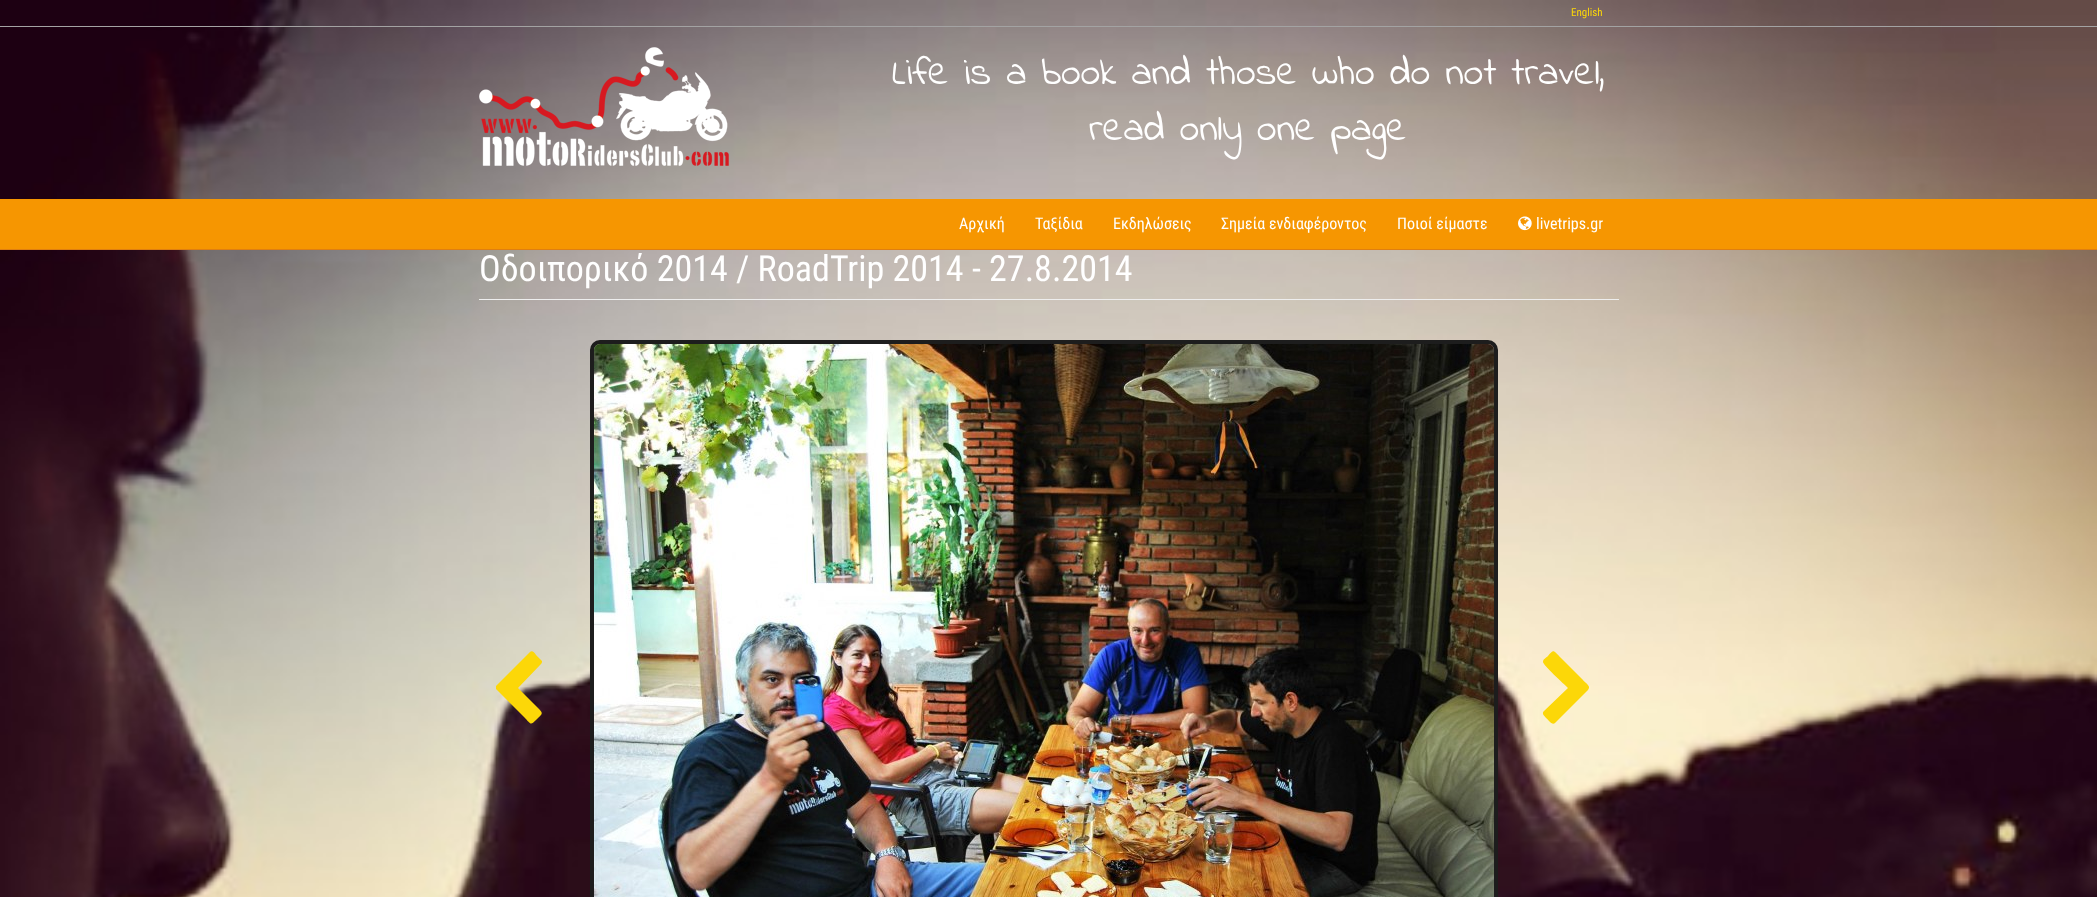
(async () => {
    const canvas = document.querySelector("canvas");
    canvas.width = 2097;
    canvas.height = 897;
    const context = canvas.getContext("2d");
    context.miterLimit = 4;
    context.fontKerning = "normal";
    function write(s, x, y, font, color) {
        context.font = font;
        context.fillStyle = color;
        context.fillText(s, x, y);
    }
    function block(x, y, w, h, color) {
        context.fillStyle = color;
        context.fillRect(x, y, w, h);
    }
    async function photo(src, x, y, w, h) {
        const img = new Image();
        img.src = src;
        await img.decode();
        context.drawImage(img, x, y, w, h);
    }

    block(0, 0, 2097, 897, "rgb(255, 255, 255)");
    await photo("media/1.png", 0, 0, 2097, 897);
    block(0, 26, 2097, 1, "rgb(163, 163, 163)");
    write("English", 1571, 16, "11px Roboto Condensed", "rgb(252, 215, 8)");
    await photo("media/2.png", 479, 47, 250, 119);
    write("Life is a book and those who do not travel,", 892, 84, "40px Indie Flower", "rgb(255, 255, 255)");
    write("read only one page", 1089, 140, "40px Indie Flower", "rgb(255, 255, 255)");
    block(0, 199, 2097, 50, "rgb(246, 150, 1)");
    block(0, 249, 2097, 1, "rgb(223, 127, 17)");
    write("Αρχική", 959, 229, "16px Roboto Condensed", "rgb(255, 255, 255)");
    write("Ταξίδια", 1035, 229, "16px Roboto Condensed", "rgb(255, 255, 255)");
    write("Εκδηλώσεις", 1113, 229, "16px Roboto Condensed", "rgb(255, 255, 255)");
    write("Σημεία ενδιαφέροντος", 1221, 229, "16px Roboto Condensed", "rgb(255, 255, 255)");
    write("Ποιοί είμαστε", 1397, 229, "16px Roboto Condensed", "rgb(255, 255, 255)");
    await photo("media/3.png", 1518, 216, 14, 15);
    write("livetrips.gr", 1536, 229, "16px Roboto Condensed", "rgb(255, 255, 255)");
    block(479, 299, 1140, 1, "rgb(238, 238, 238)");
    write("Οδοιπορικό 2014 / RoadTrip 2014 - 27.8.2014", 479, 281, "36px Roboto Condensed", "rgb(255, 255, 255)");
    context.beginPath();
    context.roundRect(592, 342, 904, 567, 8);
    context.strokeStyle = "rgb(29, 29, 29)";
    context.lineWidth = 4;
    context.stroke();
    await photo("media/4.png", 594, 344, 900, 553);
    context.fillStyle = "rgb(252, 215, 8)";
    context.beginPath();
    context.moveTo(541, 664);
    context.lineTo(518, 688);
    context.lineTo(537, 707);
    context.bezierCurveTo(544, 714, 543, 713, 536, 720);
    context.bezierCurveTo(530, 726, 531, 724, 524, 717);
    context.lineTo(496, 689);
    context.lineTo(496, 686);
    context.lineTo(530, 652);
    context.bezierCurveTo(532, 650, 535, 653, 536, 655);
    context.lineTo(542, 661);
    context.bezierCurveTo(542, 662, 542, 663, 541, 664);
    context.closePath();
    context.fill();
    context.beginPath();
    context.moveTo(1588, 690);
    context.lineTo(1555, 723);
    context.bezierCurveTo(1552, 726, 1548, 719, 1546, 718);
    context.bezierCurveTo(1545, 716, 1541, 714, 1544, 711);
    context.lineTo(1568, 688);
    context.bezierCurveTo(1564, 684, 1543, 665, 1543, 662);
    context.bezierCurveTo(1543, 659, 1546, 658, 1548, 656);
    context.bezierCurveTo(1554, 649, 1553, 650, 1561, 658);
    context.lineTo(1583, 680);
    context.bezierCurveTo(1583, 681, 1590, 685, 1589, 688);
    context.closePath();
    context.fill();
})();
